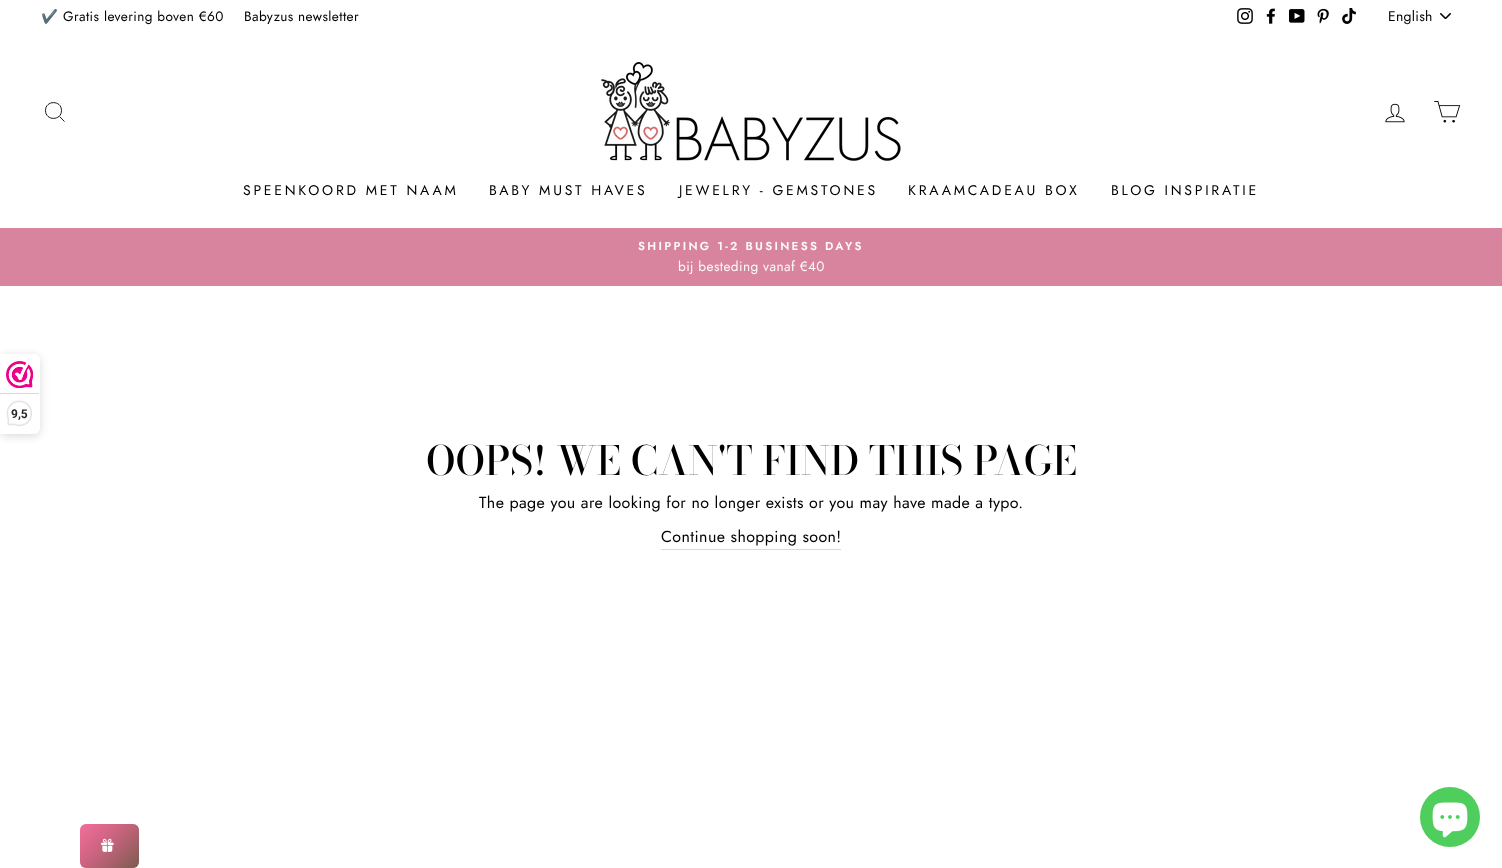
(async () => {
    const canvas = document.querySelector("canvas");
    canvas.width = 1502;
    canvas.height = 868;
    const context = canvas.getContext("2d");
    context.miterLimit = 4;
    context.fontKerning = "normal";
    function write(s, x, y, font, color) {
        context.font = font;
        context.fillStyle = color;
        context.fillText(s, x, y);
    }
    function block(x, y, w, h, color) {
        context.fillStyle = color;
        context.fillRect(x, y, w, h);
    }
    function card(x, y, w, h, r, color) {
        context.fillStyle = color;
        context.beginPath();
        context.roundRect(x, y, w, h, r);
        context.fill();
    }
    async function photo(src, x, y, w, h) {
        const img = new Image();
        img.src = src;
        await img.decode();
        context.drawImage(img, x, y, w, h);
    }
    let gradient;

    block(0, 0, 1502, 868, "rgb(255, 255, 255)");
    context.fillStyle = "rgba(0, 0, 0, 0.15)";
    context.filter = "blur(5px)";
    context.beginPath();
    context.roundRect(0, 356, 40, 80, 6);
    context.fill();
    context.filter = "none";
    context.fillStyle = "rgb(255, 255, 255)";
    context.beginPath();
    context.roundRect(0, 354, 40, 80, [0, 6, 6, 0]);
    context.fill();
    await photo("media/1.png", 6, 361, 27, 27);
    block(0, 393, 39, 1, "rgb(217, 217, 217)");
    await photo("media/2.png", 6, 400, 26, 26);
    write("9,5", 11, 418, "bold 12px Roboto", "rgb(39, 38, 38)");
    context.letterSpacing = "0.4px";
    write("✔️", 41, 21, "13.6px Noto Color Emoji", "rgb(0, 0, 0)");
    write("Gratis levering boven €60", 63, 21, "13.6px Jost", "rgb(0, 0, 0)");
    write("Babyzus newsletter", 244, 21, "13.6px Jost", "rgb(0, 0, 0)");
    await photo("media/3.png", 1237, 8, 16, 16);
    await photo("media/4.png", 1266, 8, 9, 16);
    await photo("media/5.png", 1289, 9, 16, 14);
    await photo("media/6.png", 1317, 8, 12, 16);
    await photo("media/7.png", 1342, 8, 14, 16);
    await photo("media/8.png", 1440, 13, 11, 6);
    context.letterSpacing = "0.25px";
    write("English", 1388, 21, "14px Jost", "rgb(0, 0, 0)");
    context.beginPath();
    context.moveTo(61.5, 110.5);
    context.bezierCurveTo(61.5, 121, 45.5, 121, 45.5, 110.5);
    context.bezierCurveTo(45.5, 100, 61.5, 100, 61.5, 110.5);
    context.closePath();
    context.moveTo(64.5, 121.5);
    context.lineTo(59.5, 116.5);
    context.strokeStyle = "rgb(0, 0, 0)";
    context.lineWidth = 0.9;
    context.stroke();
    await photo("media/9.png", 601, 62, 300, 99);
    await photo("media/10.png", 1385, 103, 20, 20);
    await photo("media/11.png", 1434, 101, 27, 22);
    context.letterSpacing = "2.75px";
    write("SPEENKOORD MET NAAM", 243, 195, "14px Jost", "rgb(0, 0, 0)");
    write("BABY MUST HAVES", 489, 195, "14px Jost", "rgb(0, 0, 0)");
    write("JEWELRY - GEMSTONES", 679, 195, "14px Jost", "rgb(0, 0, 0)");
    write("KRAAMCADEAU BOX", 908, 195, "14px Jost", "rgb(0, 0, 0)");
    write("BLOG INSPIRATIE", 1111, 195, "14px Jost", "rgb(0, 0, 0)");
    block(0, 228, 1502, 58, "rgb(216, 132, 158)");
    context.letterSpacing = "2.3px";
    write("SHIPPING 1-2 BUSINESS DAYS", 638, 250, "600 11.6px Jost", "rgb(250, 250, 250)");
    context.letterSpacing = "0.4px";
    write("bij besteding vanaf €40", 678, 271, "13.6px Jost", "rgb(250, 250, 250)");
    context.letterSpacing = "0px";
    write("OOPS! WE CAN'T FIND THIS PAGE", 426, 475, "500 40px Bodoni Moda", "rgb(0, 0, 0)");
    context.letterSpacing = "0.4px";
    write("The page you are looking for no longer exists or you may have made a typo.", 479, 508, "16px Jost", "rgb(0, 0, 0)");
    block(661, 549, 180, 1, "rgb(217, 217, 217)");
    write("Continue shopping soon!", 661, 542, "16px Jost", "rgb(0, 0, 0)");
    card(80, 824, 59, 44, 6, "rgb(246, 165, 193)");
    gradient = context.createLinearGradient(84, 820, 135, 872);
    gradient.addColorStop(0, "rgba(233, 30, 99, 0.4)");
    gradient.addColorStop(1, "rgba(76, 70, 40, 0.75)");
    context.fillStyle = gradient;
    context.beginPath();
    context.roundRect(80, 824, 59, 44, 6);
    context.fill();
    await photo("media/12.png", 101, 838, 13, 14);
    context.fillStyle = "rgb(79, 206, 93)";
    context.beginPath();
    context.arc(1450, 817, 30, 0, Math.PI * 2);
    context.fill();
    await photo("media/13.png", 1432, 802, 36, 36);
})();
